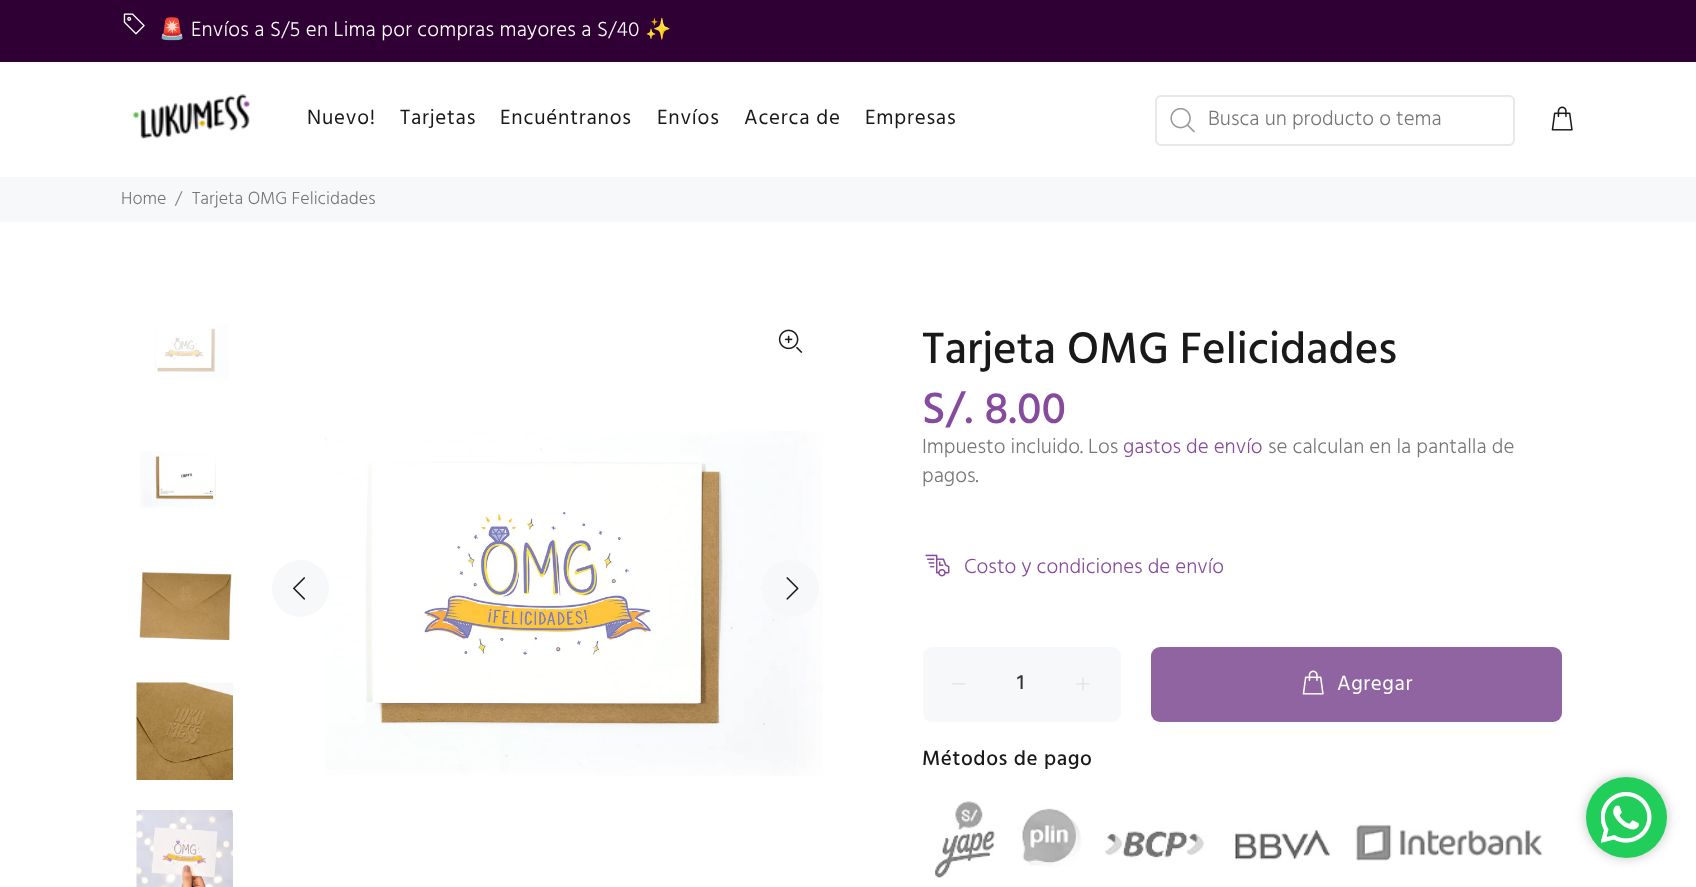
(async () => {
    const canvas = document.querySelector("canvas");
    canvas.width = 1696;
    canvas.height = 887;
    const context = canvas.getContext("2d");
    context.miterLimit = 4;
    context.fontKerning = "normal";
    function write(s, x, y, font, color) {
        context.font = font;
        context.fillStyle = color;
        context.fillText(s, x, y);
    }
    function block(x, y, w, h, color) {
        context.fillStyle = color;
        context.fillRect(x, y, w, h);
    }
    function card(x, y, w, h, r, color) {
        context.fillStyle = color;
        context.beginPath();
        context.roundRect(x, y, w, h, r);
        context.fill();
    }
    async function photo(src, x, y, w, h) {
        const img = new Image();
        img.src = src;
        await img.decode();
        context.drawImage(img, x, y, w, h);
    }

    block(0, 0, 1696, 887, "rgb(255, 255, 255)");
    block(0, 0, 1696, 62, "rgb(47, 0, 52)");
    await photo("media/1.png", 123, 13, 22, 22);
    context.letterSpacing = "0.2px";
    write("🚨", 159, 36, "21px Noto Color Emoji", "rgb(255, 255, 255)");
    write("Envíos a S/5 en Lima por compras mayores a S/40", 191, 36, "300 21px Hind", "rgb(255, 255, 255)");
    write("✨", 645, 36, "21px Noto Color Emoji", "rgb(255, 255, 255)");
    await photo("media/2.png", 133, 94, 118, 45);
    context.letterSpacing = "0.8px";
    write("Nuevo!", 307, 124, "21px Hind", "rgb(25, 25, 25)");
    write("Tarjetas", 400, 124, "21px Hind", "rgb(25, 25, 25)");
    write("Encuéntranos", 500, 124, "21px Hind", "rgb(25, 25, 25)");
    write("Envíos", 657, 124, "21px Hind", "rgb(25, 25, 25)");
    write("Acerca de", 744, 124, "21px Hind", "rgb(25, 25, 25)");
    write("Empresas", 865, 124, "21px Hind", "rgb(25, 25, 25)");
    context.beginPath();
    context.roundRect(1156, 96, 358, 49, 5);
    context.strokeStyle = "rgb(233, 231, 231)";
    context.lineWidth = 2;
    context.stroke();
    await photo("media/3.png", 1170, 107, 25, 26);
    context.letterSpacing = "0px";
    write("Busca un producto o tema", 1208, 125, "300 21px Hind", "rgb(119, 119, 119)");
    await photo("media/4.png", 1551, 106, 22, 25);
    block(0, 177, 1696, 45, "rgb(247, 248, 250)");
    write("Home", 121, 204, "300 18px Hind", "rgb(119, 119, 119)");
    write("/", 175, 204, "300 18px Hind", "rgb(119, 119, 119)");
    write("Tarjeta OMG Felicidades", 192, 204, "300 18px Hind", "rgb(119, 119, 119)");
    await photo("media/5.png", 155, 323, 75, 57);
    await photo("media/6.png", 140, 451, 76, 57);
    await photo("media/7.png", 139, 572, 94, 69);
    await photo("media/8.png", 136, 682, 97, 98);
    await photo("media/9.png", 136, 810, 97, 77);
    await photo("media/10.png", 778, 329, 25, 24);
    await photo("media/11.png", 325, 431, 498, 345);
    context.fillStyle = "rgb(247, 248, 250)";
    context.beginPath();
    context.arc(300.5, 588.5, 28.5, 0, Math.PI * 2);
    context.fill();
    await photo("media/12.png", 293, 577, 12, 23);
    context.beginPath();
    context.arc(790.5, 588.5, 28.5, 0, Math.PI * 2);
    context.fill();
    await photo("media/13.png", 786, 577, 13, 23);
    write("Tarjeta OMG Felicidades", 922, 363, "500 45px Hind", "rgb(25, 25, 25)");
    write("S/. 8.00", 922, 423, "500 45px Hind", "rgb(134, 75, 157)");
    write("Impuesto incluido. Los", 922, 453, "300 21px Hind", "rgb(119, 119, 119)");
    write("gastos de envío", 1123, 453, "300 21px Hind", "rgb(134, 75, 157)");
    write("se calculan en la pantalla de", 1268, 453, "300 21px Hind", "rgb(119, 119, 119)");
    write("pagos.", 922, 482, "300 21px Hind", "rgb(119, 119, 119)");
    await photo("media/14.png", 925, 554, 25, 23);
    write("Costo y condiciones de envío", 964, 573, "300 21px Hind", "rgb(134, 75, 157)");
    card(923, 647, 198, 75, 9, "rgb(247, 248, 250)");
    await photo("media/15.png", 952, 683, 14, 2);
    write("1", 1017, 689, "500 21px Hind", "rgb(51, 51, 51)");
    await photo("media/16.png", 1076, 677, 14, 14);
    card(1151, 647, 411, 75, 9, "rgb(144, 100, 161)");
    await photo("media/17.png", 1302, 670, 22, 25);
    context.letterSpacing = "0.6px";
    write("Agregar", 1337, 690, "21px Hind", "rgb(255, 255, 255)");
    write("Métodos de pago", 922, 765, "500 21px Hind", "rgb(25, 25, 25)");
    await photo("media/18.png", 934, 801, 612, 77);
    context.fillStyle = "rgb(194, 194, 194)";
    context.filter = "blur(6px)";
    context.beginPath();
    context.roundRect(1586, 777, 81, 81, 40.5);
    context.fill();
    context.filter = "none";
    context.fillStyle = "rgb(34, 206, 90)";
    context.beginPath();
    context.arc(1626.5, 817.5, 40.5, 0, Math.PI * 2);
    context.fill();
    await photo("media/19.png", 1601, 792, 51, 51);
})();
